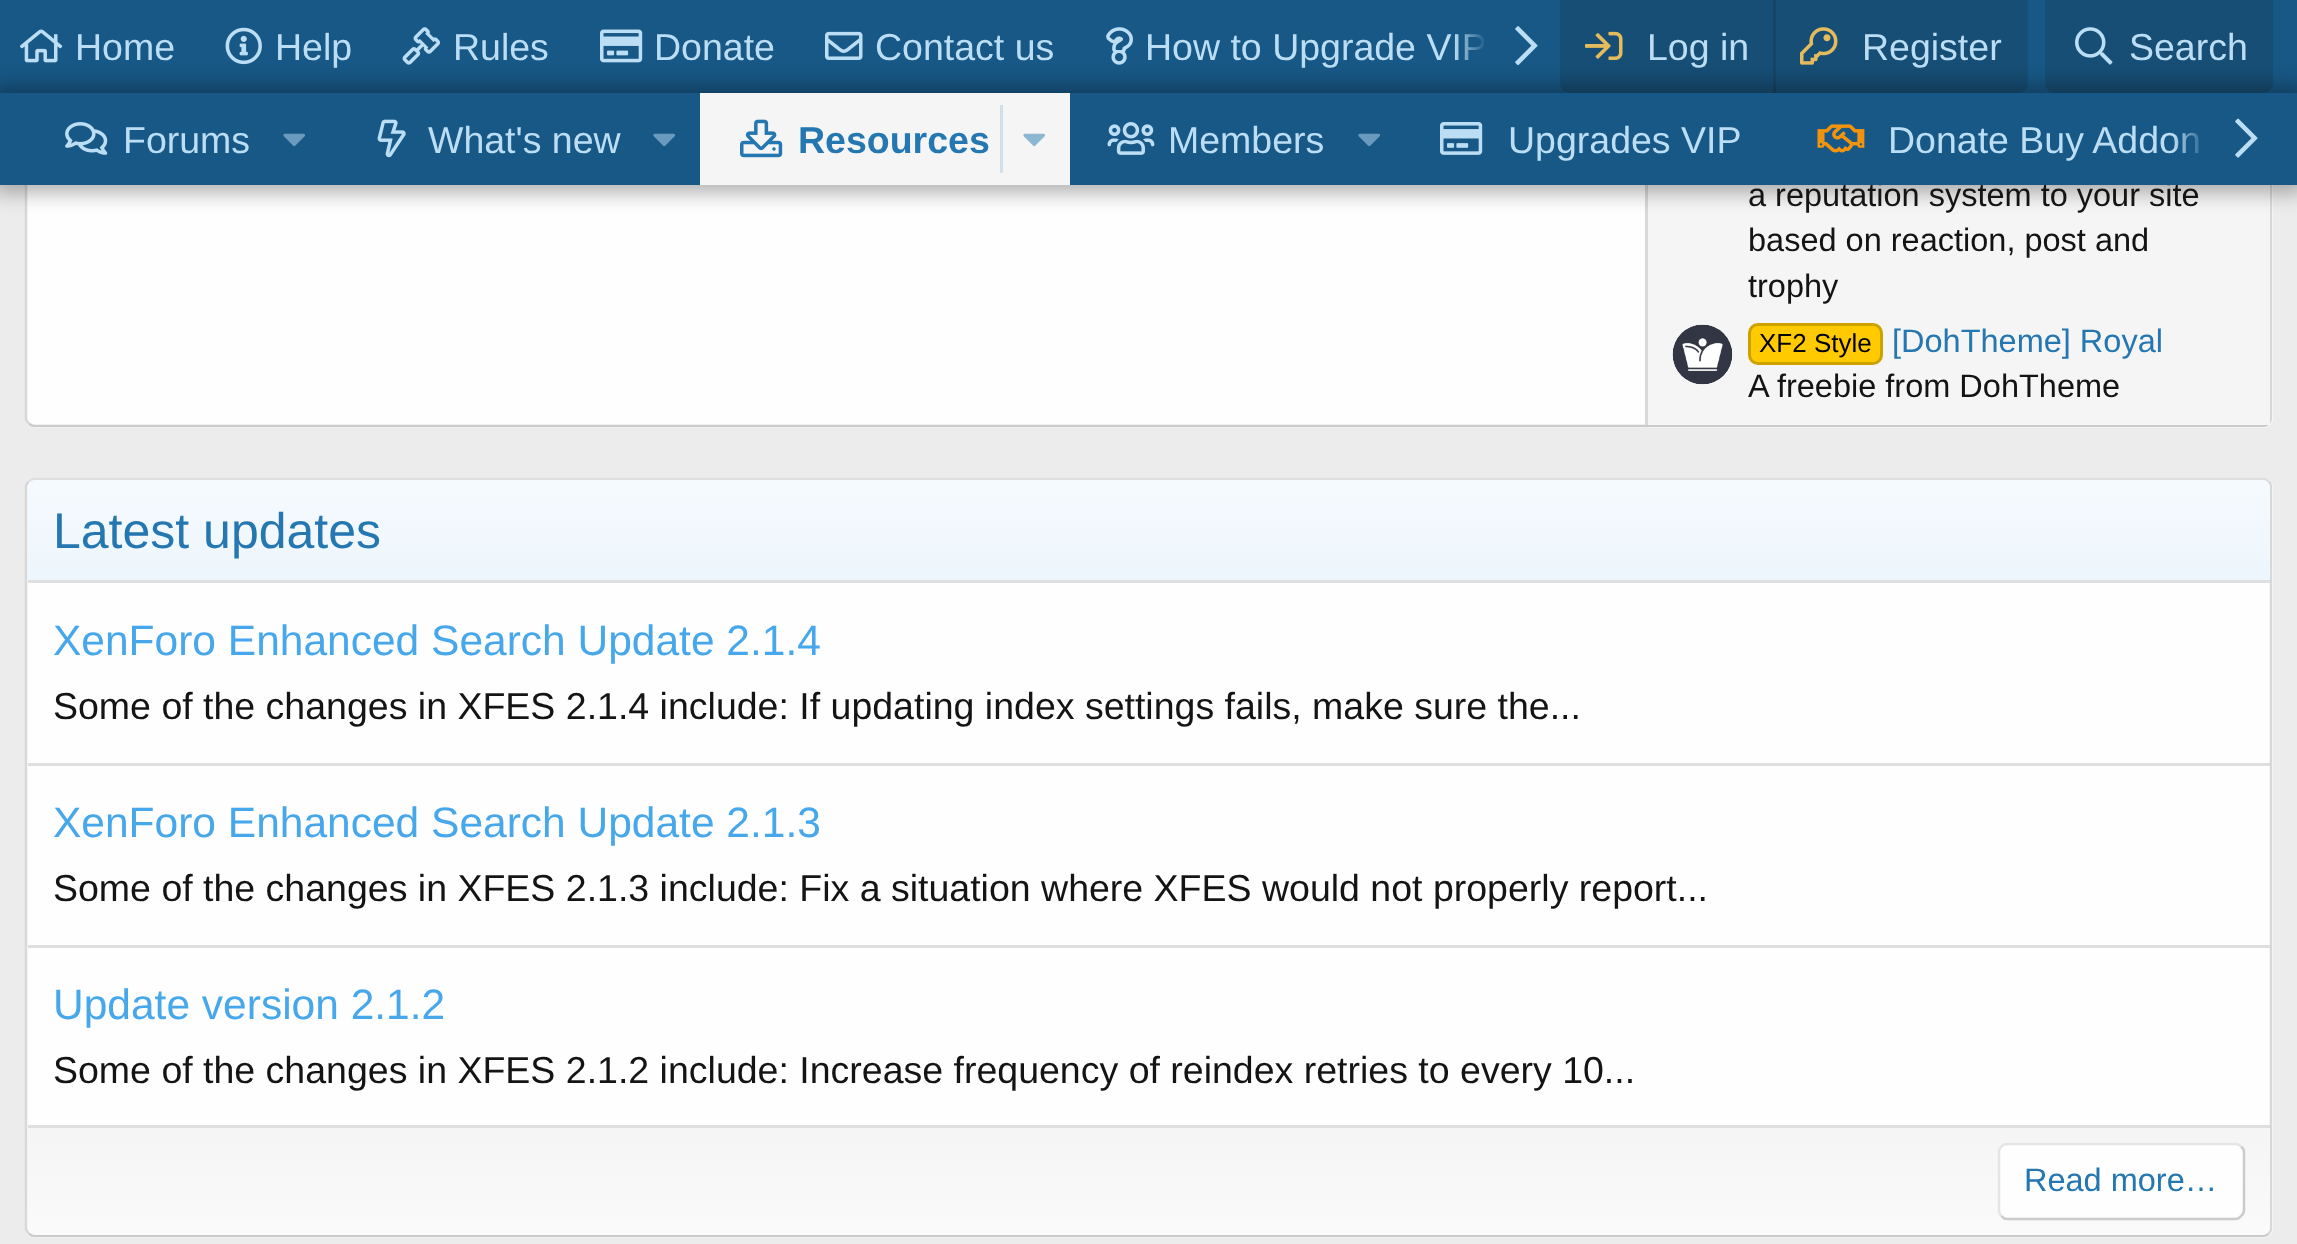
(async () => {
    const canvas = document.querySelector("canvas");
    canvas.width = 2297;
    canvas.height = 1244;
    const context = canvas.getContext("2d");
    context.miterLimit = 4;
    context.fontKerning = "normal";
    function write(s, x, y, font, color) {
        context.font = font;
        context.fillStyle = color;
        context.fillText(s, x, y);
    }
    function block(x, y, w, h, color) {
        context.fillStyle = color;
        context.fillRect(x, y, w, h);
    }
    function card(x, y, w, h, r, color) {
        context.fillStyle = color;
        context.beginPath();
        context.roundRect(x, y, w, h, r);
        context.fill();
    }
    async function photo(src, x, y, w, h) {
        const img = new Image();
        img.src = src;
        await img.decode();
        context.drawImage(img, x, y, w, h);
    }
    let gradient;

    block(0, 0, 2297, 1244, "rgb(236, 236, 236)");
    card(25, -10, 2248, 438, 10, "rgb(254, 254, 254)");
    context.beginPath();
    context.moveTo(2268.5, -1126);
    context.bezierCurveTo(2270.5, -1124.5, 2271, -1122.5, 2271, -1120);
    context.lineTo(2271, 417.5);
    context.bezierCurveTo(2271, 420, 2270.5, 422, 2268.5, 423.5);
    context.strokeStyle = "rgb(216, 216, 216)";
    context.lineWidth = 2.5;
    context.stroke();
    context.beginPath();
    context.moveTo(2268.5, 423.5);
    context.bezierCurveTo(2267, 425.5, 2265, 426, 2262.5, 426);
    context.lineTo(35, 426);
    context.bezierCurveTo(32.5, 426, 30.5, 425.5, 29, 423.5);
    context.strokeStyle = "rgb(203, 203, 203)";
    context.stroke();
    context.beginPath();
    context.moveTo(29, 423.5);
    context.bezierCurveTo(27, 422, 26, 420, 26, 417.5);
    context.lineTo(26, -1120);
    context.bezierCurveTo(26, -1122.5, 27, -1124.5, 29, -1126);
    context.strokeStyle = "rgb(216, 216, 216)";
    context.stroke();
    block(0, 0, 2297, 93, "rgb(24, 88, 134)");
    await photo("media/1.png", 20, 29, 43, 34);
    write("Home", 75, 60, "37.5px Liberation Sans", "rgb(188, 222, 245)");
    await photo("media/2.png", 225, 27, 37, 38);
    write("Help", 275, 60, "37.5px Liberation Sans", "rgb(188, 222, 245)");
    await photo("media/3.png", 402, 27, 39, 38);
    write("Rules", 453, 60, "37.5px Liberation Sans", "rgb(188, 222, 245)");
    await photo("media/4.png", 600, 29, 43, 34);
    write("Donate", 654, 60, "37.5px Liberation Sans", "rgb(188, 222, 245)");
    await photo("media/5.png", 825, 31, 38, 29);
    write("Contact us", 875, 60, "37.5px Liberation Sans", "rgb(188, 222, 245)");
    await photo("media/6.png", 1106, 27, 27, 38);
    write("How to Upgrade VIP", 1145, 60, "37.5px Liberation Sans", "rgb(188, 222, 245)");
    gradient = context.createLinearGradient(1453, 46, 1553, 46);
    gradient.addColorStop(0, "rgba(24, 88, 134, 0)");
    gradient.addColorStop(0.33, "rgb(24, 88, 134)");
    context.fillStyle = gradient;
    context.fillRect(1455, 34, 31, 26);
    await photo("media/7.png", 1515, 26, 23, 40);
    context.fillStyle = "rgb(23, 78, 117)";
    context.beginPath();
    context.roundRect(1560, 0, 468, 93, [0, 0, 10, 10]);
    context.fill();
    await photo("media/8.png", 1585, 31, 38, 29);
    write("Log in", 1647, 60, "37.5px Liberation Sans", "rgb(188, 222, 245)");
    block(1773, 0, 3, 93, "rgb(23, 69, 102)");
    await photo("media/9.png", 1800, 27, 38, 38);
    write("Register", 1862, 60, "37.5px Liberation Sans", "rgb(188, 222, 245)");
    context.fillStyle = "rgb(23, 78, 117)";
    context.beginPath();
    context.roundRect(2045, 0, 228, 93, [0, 0, 10, 10]);
    context.fill();
    await photo("media/10.png", 2075, 27, 38, 38);
    write("Search", 2129, 60, "37.5px Liberation Sans", "rgb(188, 222, 245)");
    block(1648, 185, 622, 240, "rgb(245, 245, 245)");
    block(1645, 185, 3, 240, "rgb(216, 216, 216)");
    context.fillStyle = "rgba(0, 0, 0, 0.3)";
    context.filter = "blur(10px)";
    context.beginPath();
    context.rect(-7, 85, 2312, 108);
    context.fill();
    context.filter = "none";
    write("a reputation system to your site", 1748, 206, "32.5px Liberation Sans", "rgb(20, 20, 20)");
    block(0, 93, 2297, 92, "rgb(24, 88, 134)");
    await photo("media/11.png", 65, 122, 43, 33);
    write("Forums", 123, 153, "37.5px Liberation Sans", "rgb(188, 222, 245)");
    await photo("media/12.png", 283, 133, 22, 14);
    await photo("media/13.png", 377, 119, 29, 39);
    write("What's new", 428, 153, "37.5px Liberation Sans", "rgb(188, 222, 245)");
    await photo("media/12.png", 653, 133, 22, 14);
    block(700, 93, 370, 92, "rgb(245, 245, 245)");
    await photo("media/14.png", 740, 119, 43, 39);
    write("Resources", 798, 153, "bold 37.5px Liberation Sans", "rgb(37, 119, 177)");
    block(1000, 105, 3, 68, "rgb(209, 223, 233)");
    await photo("media/15.png", 1023, 133, 22, 14);
    await photo("media/16.png", 1107, 122, 48, 33);
    write("Members", 1168, 153, "37.5px Liberation Sans", "rgb(188, 222, 245)");
    await photo("media/12.png", 1358, 133, 22, 14);
    await photo("media/17.png", 1440, 122, 43, 33);
    write("Upgrades VIP", 1508, 153, "37.5px Liberation Sans", "rgb(188, 222, 245)");
    await photo("media/18.png", 1817, 124, 48, 29);
    write("Donate Buy Addon", 1888, 153, "37.5px Liberation Sans", "rgb(188, 222, 245)");
    gradient = context.createLinearGradient(2173, 139, 2273, 139);
    gradient.addColorStop(0, "rgba(24, 88, 134, 0)");
    gradient.addColorStop(0.33, "rgb(24, 88, 134)");
    context.fillStyle = gradient;
    context.fillRect(2174, 132, 25, 21);
    await photo("media/19.png", 2235, 118, 23, 40);
    write("based on reaction, post and", 1748, 251, "32.5px Liberation Sans", "rgb(20, 20, 20)");
    write("trophy", 1748, 297, "32.5px Liberation Sans", "rgb(20, 20, 20)");
    context.fillStyle = "rgb(254, 254, 254)";
    context.beginPath();
    context.arc(1703, 355, 30, 0, Math.PI * 2);
    context.fill();
    await photo("media/20.png", 1672, 324, 61, 61);
    context.fillStyle = "rgb(255, 203, 0)";
    context.beginPath();
    context.roundRect(1749.5, 324.5, 132, 39, 8.5);
    context.fill();
    context.strokeStyle = "rgb(204, 162, 0)";
    context.lineWidth = 3;
    context.stroke();
    write("XF2 Style", 1759, 352, "26px Liberation Sans", "rgb(0, 0, 0)");
    write("[DohTheme] Royal", 1892, 352, "32.5px Liberation Sans", "rgb(37, 119, 177)");
    write("A freebie from DohTheme", 1748, 397, "32.5px Liberation Sans", "rgb(20, 20, 20)");
    card(25, 478, 2248, 760, 10, "rgb(254, 254, 254)");
    context.beginPath();
    context.moveTo(29, 481.5);
    context.bezierCurveTo(30.5, 479.5, 32.5, 479, 35, 479);
    context.lineTo(2262.5, 479);
    context.bezierCurveTo(2265, 479, 2267, 479.5, 2268.5, 481.5);
    context.strokeStyle = "rgb(223, 223, 223)";
    context.lineWidth = 2.5;
    context.stroke();
    context.beginPath();
    context.moveTo(2268.5, 481.5);
    context.bezierCurveTo(2270.5, 483, 2271, 485, 2271, 487.5);
    context.lineTo(2271, 1227.5);
    context.bezierCurveTo(2271, 1230, 2270.5, 1232, 2268.5, 1233.5);
    context.strokeStyle = "rgb(216, 216, 216)";
    context.stroke();
    context.beginPath();
    context.moveTo(2268.5, 1233.5);
    context.bezierCurveTo(2267, 1235.5, 2265, 1236, 2262.5, 1236);
    context.lineTo(35, 1236);
    context.bezierCurveTo(32.5, 1236, 30.5, 1235.5, 29, 1233.5);
    context.strokeStyle = "rgb(203, 203, 203)";
    context.stroke();
    context.beginPath();
    context.moveTo(29, 1233.5);
    context.bezierCurveTo(27, 1232, 26, 1230, 26, 1227.5);
    context.lineTo(26, 487.5);
    context.bezierCurveTo(26, 485, 27, 483, 29, 481.5);
    context.strokeStyle = "rgb(216, 216, 216)";
    context.stroke();
    gradient = context.createLinearGradient(1149, 580, 1149, 480);
    gradient.addColorStop(0, "rgb(237, 246, 253)");
    gradient.addColorStop(1, "rgb(246, 250, 254)");
    context.fillStyle = gradient;
    context.beginPath();
    context.roundRect(28, 480, 2242, 100, [8, 8, 0, 0]);
    context.fill();
    block(28, 580, 2242, 3, "rgb(223, 223, 223)");
    write("Latest updates", 53, 548, "50px Liberation Sans", "rgb(37, 119, 177)");
    write("XenForo Enhanced Search Update 2.1.4", 53, 655, "42.5px Liberation Sans", "rgb(71, 167, 235)");
    write("Some of the changes in XFES 2.1.4 include: If updating index settings fails, make sure the...", 53, 719, "37.5px Liberation Sans", "rgb(20, 20, 20)");
    block(28, 763, 2242, 3, "rgb(223, 223, 223)");
    write("XenForo Enhanced Search Update 2.1.3", 53, 837, "42.5px Liberation Sans", "rgb(71, 167, 235)");
    write("Some of the changes in XFES 2.1.3 include: Fix a situation where XFES would not properly report...", 53, 901, "37.5px Liberation Sans", "rgb(20, 20, 20)");
    block(28, 945, 2242, 3, "rgb(223, 223, 223)");
    write("Update version 2.1.2", 53, 1019, "42.5px Liberation Sans", "rgb(71, 167, 235)");
    write("Some of the changes in XFES 2.1.2 include: Increase frequency of reindex retries to every 10...", 53, 1083, "37.5px Liberation Sans", "rgb(20, 20, 20)");
    gradient = context.createLinearGradient(1149, 1127, 1149, 1235);
    gradient.addColorStop(0, "rgb(245, 245, 245)");
    gradient.addColorStop(1, "rgb(250, 250, 250)");
    context.fillStyle = gradient;
    context.beginPath();
    context.roundRect(28, 1128, 2242, 107, [0, 0, 8, 8]);
    context.fill();
    block(28, 1125, 2242, 3, "rgb(223, 223, 223)");
    card(1998, 1143, 247, 77, 10, "rgb(254, 254, 254)");
    context.beginPath();
    context.moveTo(2241, 1146.5);
    context.bezierCurveTo(2243, 1148, 2244, 1150, 2244, 1152.5);
    context.lineTo(2244, 1210);
    context.bezierCurveTo(2244, 1212.5, 2243, 1214.5, 2241, 1216);
    context.bezierCurveTo(2239.5, 1218, 2237.5, 1219, 2235, 1219);
    context.lineTo(2007.5, 1219);
    context.bezierCurveTo(2005, 1219, 2003, 1218, 2001.5, 1216);
    context.strokeStyle = "rgb(203, 203, 203)";
    context.stroke();
    context.beginPath();
    context.moveTo(2001.5, 1216);
    context.bezierCurveTo(1999.5, 1214.5, 1999, 1212.5, 1999, 1210);
    context.lineTo(1999, 1152.5);
    context.bezierCurveTo(1999, 1150, 1999.5, 1148, 2001.5, 1146.5);
    context.bezierCurveTo(2003, 1144.5, 2005, 1144, 2007.5, 1144);
    context.lineTo(2235, 1144);
    context.bezierCurveTo(2237.5, 1144, 2239.5, 1144.5, 2241, 1146.5);
    context.strokeStyle = "rgb(229, 229, 229)";
    context.stroke();
    write("Read more…", 2024, 1191, "32.5px Liberation Sans", "rgb(37, 119, 177)");
})();
